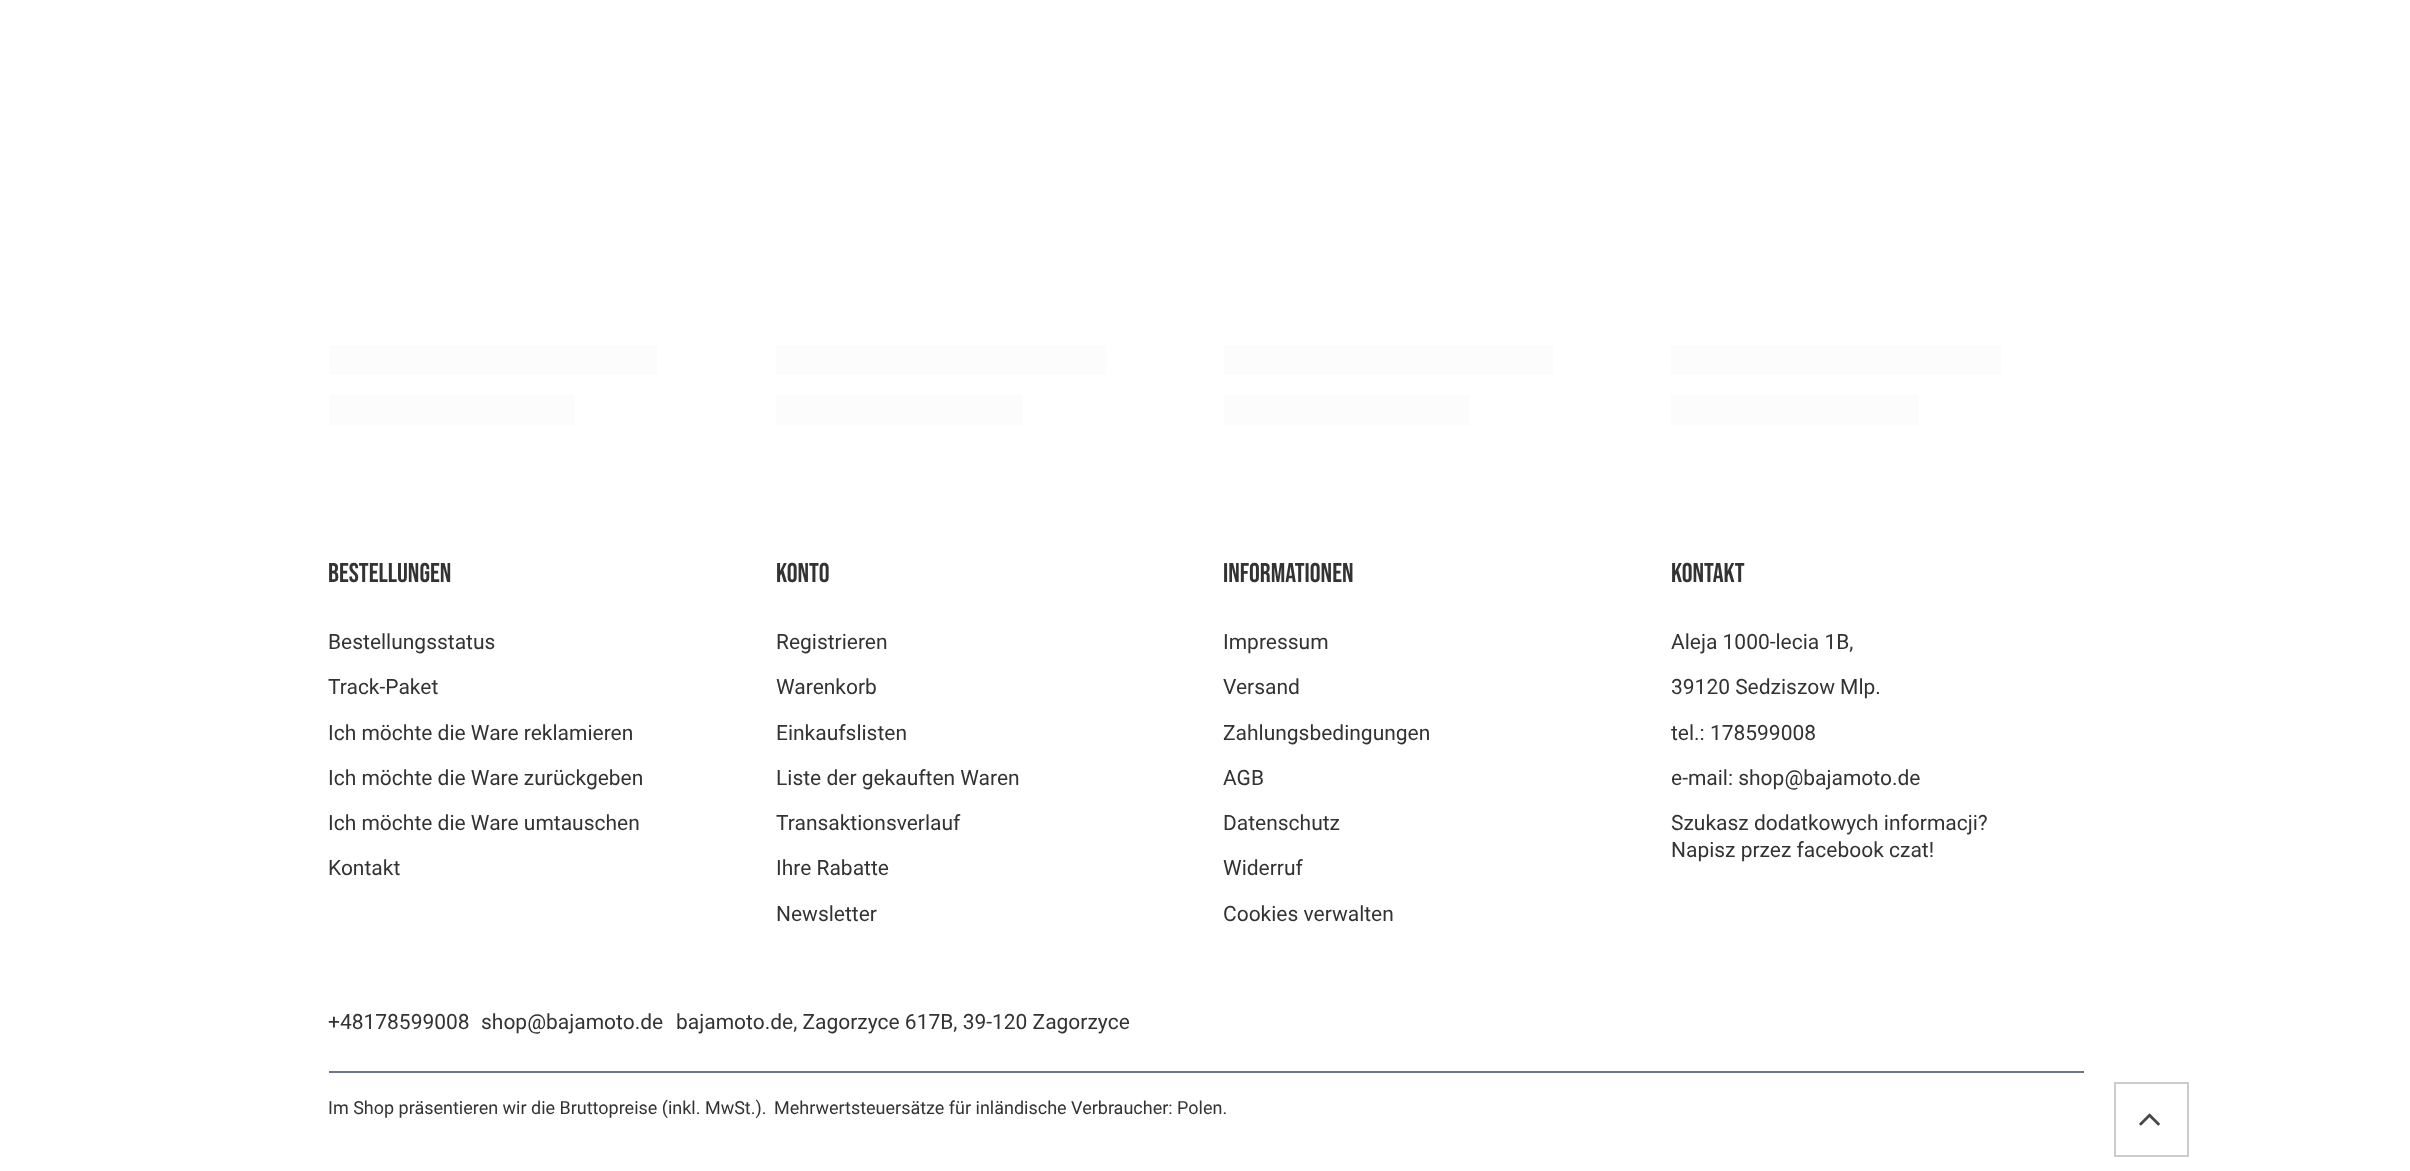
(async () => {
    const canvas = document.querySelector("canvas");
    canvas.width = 2410;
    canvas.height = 1171;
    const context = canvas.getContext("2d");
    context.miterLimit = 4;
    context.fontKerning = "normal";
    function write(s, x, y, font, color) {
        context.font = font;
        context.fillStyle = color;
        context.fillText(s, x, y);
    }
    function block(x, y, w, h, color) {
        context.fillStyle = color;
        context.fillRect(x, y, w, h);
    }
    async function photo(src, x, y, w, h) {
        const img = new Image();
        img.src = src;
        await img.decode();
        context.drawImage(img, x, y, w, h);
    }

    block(0, 0, 2410, 1171, "rgb(255, 255, 255)");
    block(329, 345, 328, 30, "rgb(252, 252, 252)");
    block(329, 395, 246, 30, "rgb(252, 252, 252)");
    block(776, 345, 330, 30, "rgb(252, 252, 252)");
    block(776, 395, 247, 30, "rgb(252, 252, 252)");
    block(1224, 345, 329, 30, "rgb(252, 252, 252)");
    block(1224, 395, 246, 30, "rgb(252, 252, 252)");
    block(1671, 345, 330, 30, "rgb(252, 252, 252)");
    block(1671, 395, 248, 30, "rgb(252, 252, 252)");
    write("BESTELLUNGEN", 328, 582, "27px Bebas Neue", "rgb(51, 51, 51)");
    write("Bestellungsstatus", 328, 649, "21px Roboto", "rgb(51, 51, 51)");
    write("Track-Paket", 328, 694, "21px Roboto", "rgb(51, 51, 51)");
    write("Ich möchte die Ware reklamieren", 328, 740, "21px Roboto", "rgb(51, 51, 51)");
    write("Ich möchte die Ware zurückgeben", 328, 785, "21px Roboto", "rgb(51, 51, 51)");
    write("Ich möchte die Ware umtauschen", 328, 830, "21px Roboto", "rgb(51, 51, 51)");
    write("Kontakt", 328, 875, "21px Roboto", "rgb(51, 51, 51)");
    write("Konto", 776, 582, "27px Bebas Neue", "rgb(51, 51, 51)");
    write("Registrieren", 776, 649, "21px Roboto", "rgb(51, 51, 51)");
    write("Warenkorb", 776, 694, "21px Roboto", "rgb(51, 51, 51)");
    write("Einkaufslisten", 776, 740, "21px Roboto", "rgb(51, 51, 51)");
    write("Liste der gekauften Waren", 776, 785, "21px Roboto", "rgb(51, 51, 51)");
    write("Transaktionsverlauf", 776, 830, "21px Roboto", "rgb(51, 51, 51)");
    write("Ihre Rabatte", 776, 875, "21px Roboto", "rgb(51, 51, 51)");
    write("Newsletter", 776, 921, "21px Roboto", "rgb(51, 51, 51)");
    write("Informationen", 1223, 582, "27px Bebas Neue", "rgb(51, 51, 51)");
    write("Impressum", 1223, 649, "21px Roboto", "rgb(51, 51, 51)");
    write("Versand", 1223, 694, "21px Roboto", "rgb(51, 51, 51)");
    write("Zahlungsbedingungen", 1223, 740, "21px Roboto", "rgb(51, 51, 51)");
    write("AGB", 1223, 785, "21px Roboto", "rgb(51, 51, 51)");
    write("Datenschutz", 1223, 830, "21px Roboto", "rgb(51, 51, 51)");
    write("Widerruf", 1223, 875, "21px Roboto", "rgb(51, 51, 51)");
    write("Cookies verwalten", 1223, 921, "21px Roboto", "rgb(51, 51, 51)");
    write("Kontakt", 1671, 582, "27px Bebas Neue", "rgb(51, 51, 51)");
    write("Aleja 1000-lecia 1B,", 1671, 649, "21px Roboto", "rgb(51, 51, 51)");
    write("39120 Sedziszow Mlp.", 1671, 694, "21px Roboto", "rgb(51, 51, 51)");
    write("tel.: 178599008", 1671, 740, "21px Roboto", "rgb(51, 51, 51)");
    write("e-mail: shop@bajamoto.de", 1671, 785, "21px Roboto", "rgb(51, 51, 51)");
    write("Szukasz dodatkowych informacji?", 1671, 830, "21px Roboto", "rgb(51, 51, 51)");
    write("Napisz przez facebook czat!", 1671, 857, "21px Roboto", "rgb(51, 51, 51)");
    block(329, 1071, 1755, 2, "rgb(107, 119, 133)");
    write("+48178599008", 328, 1029, "21px Roboto", "rgb(51, 51, 51)");
    write("shop@bajamoto.de", 481, 1029, "21px Roboto", "rgb(51, 51, 51)");
    write("bajamoto.de, Zagorzyce 617B, 39-120 Zagorzyce", 676, 1029, "21px Roboto", "rgb(51, 51, 51)");
    write("Im Shop präsentieren wir die Bruttopreise (inkl. MwSt.).", 328, 1114, "18px Roboto", "rgb(51, 51, 51)");
    write("Mehrwertsteuersätze für inländische Verbraucher: Polen.", 774, 1114, "18px Roboto", "rgb(51, 51, 51)");
    context.strokeStyle = "rgb(202, 205, 206)";
    context.lineWidth = 2;
    context.strokeRect(2115, 1083, 73, 73);
    await photo("media/1.png", 2139, 1113, 21, 13);
})();
